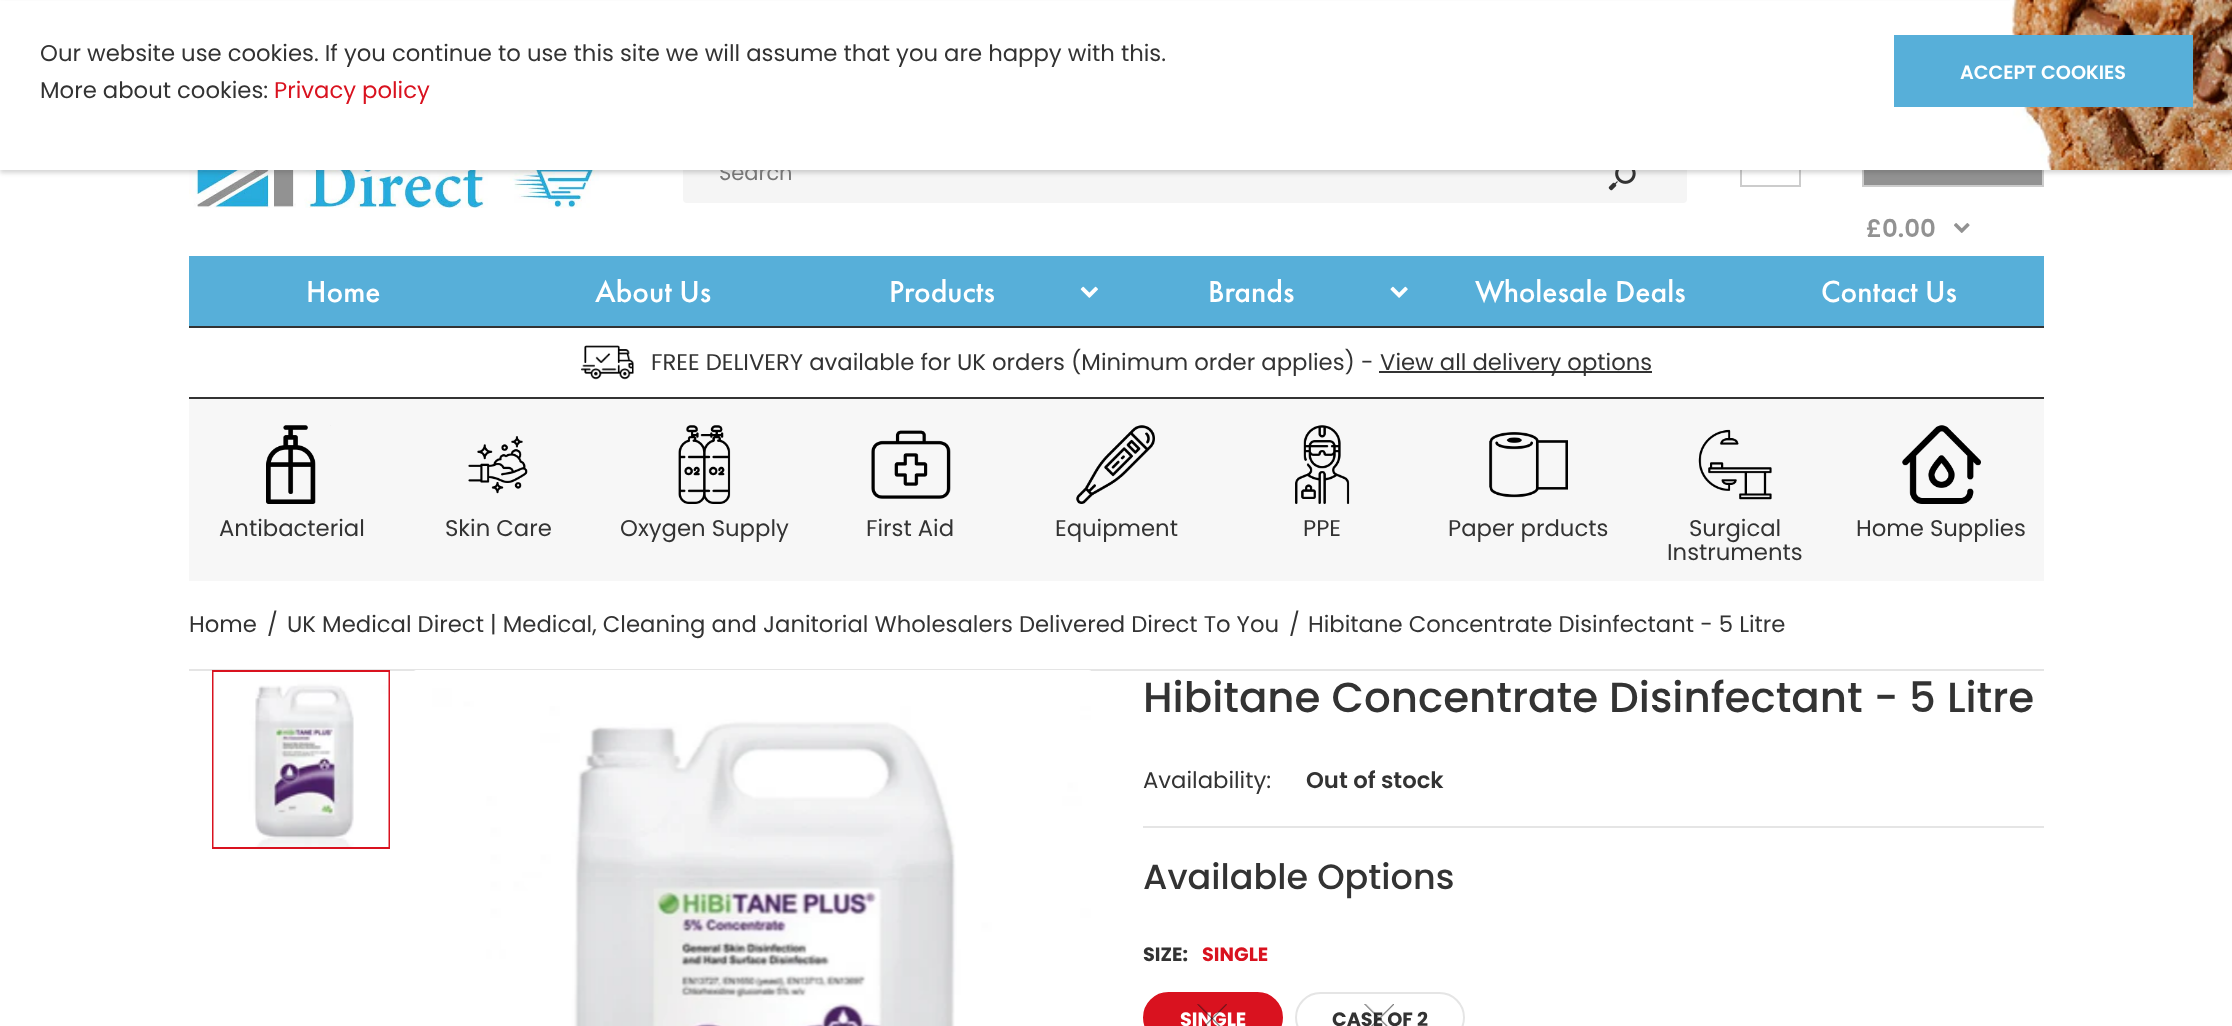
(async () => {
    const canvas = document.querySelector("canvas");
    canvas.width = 2232;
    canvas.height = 1026;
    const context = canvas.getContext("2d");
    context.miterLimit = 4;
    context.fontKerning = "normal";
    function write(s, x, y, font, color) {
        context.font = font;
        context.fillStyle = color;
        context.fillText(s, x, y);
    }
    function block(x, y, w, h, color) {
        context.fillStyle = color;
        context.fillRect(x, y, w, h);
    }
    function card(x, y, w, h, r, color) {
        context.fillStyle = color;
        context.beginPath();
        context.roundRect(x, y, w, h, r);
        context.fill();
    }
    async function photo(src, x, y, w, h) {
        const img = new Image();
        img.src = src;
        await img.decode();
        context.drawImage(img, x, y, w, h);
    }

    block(0, 0, 2232, 1026, "rgb(255, 255, 255)");
    await photo("media/2.png", 189, 170, 448, 38);
    card(683, 142, 1004, 61, 4, "rgb(245, 245, 245)");
    await photo("media/3.png", 1608, 170, 28, 21);
    context.strokeStyle = "rgb(204, 204, 204)";
    context.lineWidth = 2;
    context.strokeRect(1741, 110, 59, 76);
    block(1864, 170, 178, 15, "rgb(146, 146, 146)");
    context.strokeRect(1863, 110, 180, 76);
    context.fillStyle = "rgba(50, 50, 50, 0.2)";
    context.filter = "blur(2px)";
    context.beginPath();
    context.rect(0, 4, 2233, 169);
    context.fill();
    context.filter = "none";
    write("Search", 719, 180, "21px Poppins", "rgb(117, 117, 117)");
    block(0, 1, 2010, 169, "rgb(255, 255, 255)");
    await photo("media/1.png", 2010, 0, 222, 170);
    write("Our website use cookies. If you continue to use this site we will assume that you are happy with this.", 40, 61, "22.75px Poppins", "rgb(51, 51, 51)");
    write("More about cookies:", 40, 98, "22.75px Poppins", "rgb(51, 51, 51)");
    write("Privacy policy", 274, 98, "22.75px Poppins", "rgb(217, 18, 31)");
    block(1894, 35, 299, 72, "rgb(87, 175, 217)");
    write("ACCEPT COOKIES", 1960, 79, "600 19.25px Poppins", "rgb(255, 255, 255)");
    write("£0.00", 1866, 237, "600 24.5px Poppins", "rgb(146, 146, 146)");
    await photo("media/4.png", 1954, 223, 16, 10);
    block(189, 256, 1855, 70, "rgb(87, 175, 217)");
    write("Home", 306, 302, "500 31.5px Futura PT", "rgb(255, 255, 255)");
    write("About Us", 595, 302, "500 31.5px Futura PT", "rgb(255, 255, 255)");
    write("Products", 889, 302, "500 31.5px Futura PT", "rgb(255, 255, 255)");
    await photo("media/5.png", 1080, 286, 18, 12);
    write("Brands", 1208, 302, "500 31.5px Futura PT", "rgb(255, 255, 255)");
    await photo("media/6.png", 1390, 286, 18, 12);
    write("Wholesale Deals", 1475, 302, "500 31.5px Futura PT", "rgb(255, 255, 255)");
    write("Contact Us", 1821, 302, "500 31.5px Futura PT", "rgb(255, 255, 255)");
    block(189, 326, 1855, 2, "rgb(51, 51, 51)");
    block(189, 397, 1855, 2, "rgb(51, 51, 51)");
    await photo("media/7.png", 581, 345, 53, 35);
    write("FREE DELIVERY available for UK orders (Minimum order applies) -", 651, 370, "22.75px Poppins", "rgb(51, 51, 51)");
    block(1379, 371, 273, 2, "rgb(51, 51, 51)");
    write("View all delivery options", 1380, 370, "22.75px Poppins", "rgb(51, 51, 51)");
    block(189, 399, 1855, 182, "rgb(247, 247, 247)");
    await photo("media/8.png", 266, 425, 65, 79);
    write("Antibacterial", 219, 536, "22.75px Poppins", "rgb(51, 51, 51)");
    await photo("media/9.png", 468, 436, 60, 58);
    write("Skin Care", 445, 536, "22.75px Poppins", "rgb(51, 51, 51)");
    await photo("media/10.png", 678, 425, 53, 79);
    write("Oxygen Supply", 620, 536, "22.75px Poppins", "rgb(51, 51, 51)");
    await photo("media/11.png", 871, 430, 80, 69);
    write("First Aid", 866, 536, "22.75px Poppins", "rgb(51, 51, 51)");
    await photo("media/12.png", 1076, 425, 79, 79);
    write("Equipment", 1055, 536, "22.75px Poppins", "rgb(51, 51, 51)");
    await photo("media/13.png", 1295, 425, 55, 79);
    write("PPE", 1303, 536, "22.75px Poppins", "rgb(51, 51, 51)");
    await photo("media/14.png", 1489, 432, 79, 66);
    write("Paper prducts", 1448, 536, "22.75px Poppins", "rgb(51, 51, 51)");
    await photo("media/15.png", 1698, 429, 74, 71);
    write("Surgical", 1689, 536, "22.75px Poppins", "rgb(51, 51, 51)");
    write("Instruments", 1667, 560, "22.75px Poppins", "rgb(51, 51, 51)");
    await photo("media/16.png", 1902, 425, 79, 79);
    write("Home Supplies", 1856, 536, "22.75px Poppins", "rgb(51, 51, 51)");
    block(189, 669, 1855, 2, "rgb(229, 229, 229)");
    write("Home", 189, 632, "22.75px Poppins", "rgb(51, 51, 51)");
    write("/", 267, 632, "22.75px Poppins", "rgb(51, 51, 51)");
    write("UK Medical Direct | Medical, Cleaning and Janitorial Wholesalers Delivered Direct To You", 287, 632, "22.75px Poppins", "rgb(51, 51, 51)");
    write("/", 1289, 632, "22.75px Poppins", "rgb(51, 51, 51)");
    write("Hibitane Concentrate Disinfectant - 5 Litre", 1308, 632, "22.75px Poppins", "rgb(51, 51, 51)");
    context.strokeStyle = "rgb(217, 18, 31)";
    context.strokeRect(213, 671, 176, 177);
    await photo("media/17.png", 213, 672, 176, 175);
    await photo("media/18.png", 414, 670, 677, 356);
    write("Hibitane Concentrate Disinfectant - 5 Litre", 1143, 712, "500 42px Poppins", "rgb(51, 51, 51)");
    block(1143, 826, 901, 2, "rgb(229, 229, 229)");
    write("Availability:", 1143, 788, "22.75px Poppins", "rgb(51, 51, 51)");
    write("Out of stock", 1306, 788, "600 22.75px Poppins", "rgb(51, 51, 51)");
    write("Available Options", 1143, 889, "500 35px Poppins", "rgb(51, 51, 51)");
    write("SIZE:", 1143, 961, "bold 19.25px Poppins", "rgb(51, 51, 51)");
    write("SINGLE", 1202, 961, "bold 19.25px Poppins", "rgb(217, 18, 31)");
    context.beginPath();
    context.roundRect(1144, 993, 138, 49, 24.5);
    context.fill();
    context.stroke();
    write("SINGLE", 1180, 1026, "bold 19.25px Poppins", "rgb(255, 255, 255)");
    await photo("media/19.png", 1197, 1004, 30, 22);
    context.beginPath();
    context.roundRect(1296, 993, 168, 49, 24.5);
    context.strokeStyle = "rgb(229, 229, 229)";
    context.stroke();
    write("CASE OF 2", 1332, 1026, "bold 19.25px Poppins", "rgb(51, 51, 51)");
    await photo("media/20.png", 1364, 1004, 30, 22);
})();
